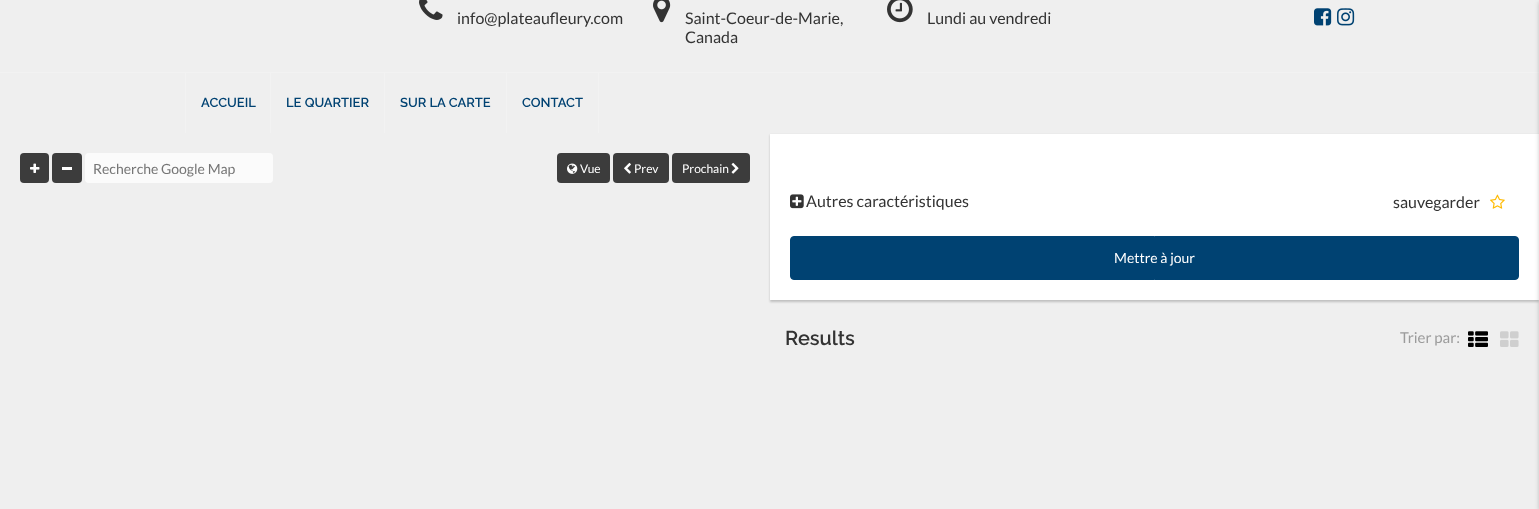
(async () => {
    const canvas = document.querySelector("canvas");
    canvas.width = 1539;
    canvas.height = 509;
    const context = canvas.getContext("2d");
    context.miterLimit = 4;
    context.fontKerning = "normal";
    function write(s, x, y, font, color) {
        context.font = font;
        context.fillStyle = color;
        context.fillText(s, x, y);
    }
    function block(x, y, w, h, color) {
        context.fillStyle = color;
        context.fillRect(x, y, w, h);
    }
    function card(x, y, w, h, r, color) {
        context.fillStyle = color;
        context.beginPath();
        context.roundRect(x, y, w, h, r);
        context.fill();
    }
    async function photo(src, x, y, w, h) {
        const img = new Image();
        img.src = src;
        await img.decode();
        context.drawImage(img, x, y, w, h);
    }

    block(0, 0, 1539, 509, "rgb(239, 239, 239)");
    await photo("media/1.png", 419, 0, 24, 20);
    write("info@plateaufleury.com", 457, 24, "16px Lato", "rgb(51, 51, 51)");
    await photo("media/2.png", 653, 0, 18, 23);
    write("Saint-Coeur-de-Marie,", 685, 24, "16px Lato", "rgb(51, 51, 51)");
    write("Canada", 685, 43, "16px Lato", "rgb(51, 51, 51)");
    await photo("media/3.png", 887, 0, 26, 23);
    write("Lundi au vendredi", 927, 24, "16px Lato", "rgb(51, 51, 51)");
    await photo("media/4.png", 1314, 8, 18, 18);
    await photo("media/5.png", 1337, 8, 18, 18);
    block(0, 72, 1539, 1, "rgb(242, 242, 242)");
    block(185, 73, 1, 60, "rgb(242, 242, 242)");
    block(270, 73, 1, 60, "rgb(242, 242, 242)");
    write("ACCUEIL", 201, 107, "600 13px Raleway", "rgb(0, 66, 114)");
    block(384, 73, 1, 60, "rgb(242, 242, 242)");
    write("LE QUARTIER", 286, 107, "600 13px Raleway", "rgb(0, 66, 114)");
    block(506, 73, 1, 60, "rgb(242, 242, 242)");
    write("SUR LA CARTE", 400, 107, "600 13px Raleway", "rgb(0, 66, 114)");
    block(598, 73, 1, 60, "rgb(242, 242, 242)");
    write("CONTACT", 522, 107, "600 13px Raleway", "rgb(0, 66, 114)");
    card(20, 153, 29, 30, 4, "rgb(60, 60, 60)");
    await photo("media/6.png", 30, 163, 10, 10);
    card(52, 153, 30, 30, 4, "rgb(60, 60, 60)");
    block(62, 167, 10, 3, "rgb(255, 255, 255)");
    card(85, 153, 188, 30, 4, "rgb(251, 251, 251)");
    write("Recherche Google Map", 93, 174, "14px Lato", "rgb(117, 117, 117)");
    card(557, 153, 53, 30, 4, "rgb(60, 60, 60)");
    await photo("media/7.png", 567, 163, 11, 11);
    write("Vue", 580, 173, "12px Lato", "rgb(255, 255, 255)");
    card(613, 153, 56, 30, 4, "rgb(60, 60, 60)");
    await photo("media/8.png", 624, 162, 7, 12);
    write("Prev", 634, 173, "12px Lato", "rgb(255, 255, 255)");
    card(672, 153, 78, 30, 4, "rgb(60, 60, 60)");
    write("Prochain", 682, 173, "12px Lato", "rgb(255, 255, 255)");
    await photo("media/9.png", 731, 162, 8, 12);
    context.fillStyle = "rgba(0, 0, 0, 0.2)";
    context.filter = "blur(1px)";
    context.beginPath();
    context.rect(770, 135, 769, 167);
    context.fill();
    context.filter = "none";
    block(770, 134, 769, 166, "rgb(255, 255, 255)");
    await photo("media/10.png", 790, 194, 14, 15);
    write("Autres caractéristiques", 806, 207, "16px Lato", "rgb(51, 51, 51)");
    write("sauvegarder", 1393, 208, "16px Lato", "rgb(51, 51, 51)");
    await photo("media/11.png", 1490, 194, 15, 15);
    context.fillStyle = "rgb(0, 66, 114)";
    context.beginPath();
    context.roundRect(790.5, 236.5, 728, 43, 3.5);
    context.fill();
    context.strokeStyle = "rgb(0, 66, 114)";
    context.stroke();
    write("Mettre à jour", 1114, 263, "14px Lato", "rgb(255, 255, 255)");
    write("Results", 785, 345, "600 20px Raleway", "rgb(51, 51, 51)");
    write("Trier par:", 1400, 343, "15px Lato", "rgb(155, 155, 155)");
    await photo("media/12.png", 1468, 331, 20, 16);
    await photo("media/13.png", 1500, 331, 19, 16);
    context.fillStyle = "rgba(0, 0, 0, 0.2)";
    context.filter = "blur(2px)";
    context.beginPath();
    context.rect(1539, 2, 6, 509);
    context.fill();
    context.filter = "none";
})();
